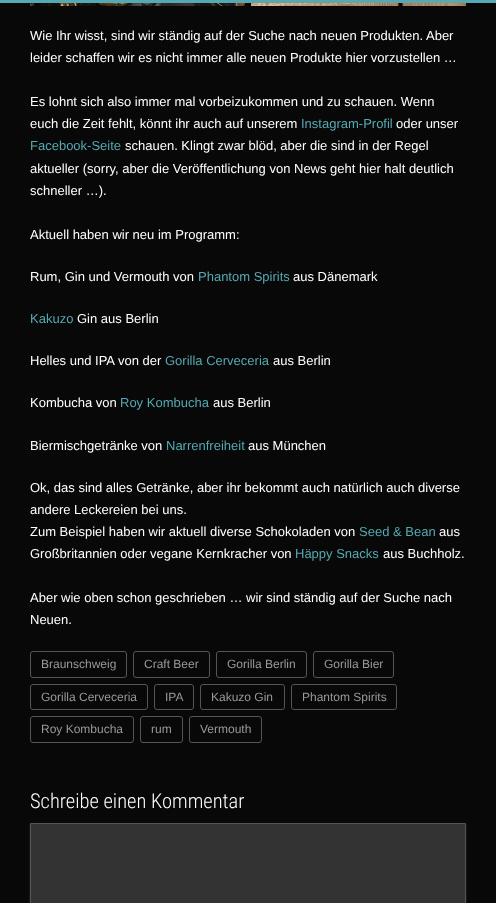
(async () => {
    const canvas = document.querySelector("canvas");
    canvas.width = 496;
    canvas.height = 903;
    const context = canvas.getContext("2d");
    context.miterLimit = 4;
    context.fontKerning = "normal";
    function write(s, x, y, font, color) {
        context.font = font;
        context.fillStyle = color;
        context.fillText(s, x, y);
    }
    function block(x, y, w, h, color) {
        context.fillStyle = color;
        context.fillRect(x, y, w, h);
    }
    async function photo(src, x, y, w, h) {
        const img = new Image();
        img.src = src;
        await img.decode();
        context.drawImage(img, x, y, w, h);
    }

    block(0, 0, 496, 903, "rgb(9, 9, 9)");
    block(0, 0, 496, 3, "rgb(85, 169, 178)");
    await photo("media/1.png", 0, 4, 495, 899);
    await photo("media/2.png", 30, 3, 215, 3);
    await photo("media/3.png", 251, 3, 215, 3);
    write("Wie Ihr wisst, sind wir ständig auf der Suche nach neuen Produkten. Aber", 30, 40, "13px Liberation Sans", "rgb(255, 255, 255)");
    write("leider schaffen wir es nicht immer alle neuen Produkte hier vorzustellen …", 30, 62, "13px Liberation Sans", "rgb(255, 255, 255)");
    write("Es lohnt sich also immer mal vorbeizukommen und zu schauen. Wenn", 30, 106, "13px Liberation Sans", "rgb(255, 255, 255)");
    write("euch die Zeit fehlt, könnt ihr auch auf unserem", 30, 128, "13px Liberation Sans", "rgb(255, 255, 255)");
    write("Instagram-Profil", 301, 128, "13px Liberation Sans", "rgb(85, 169, 178)");
    write("oder unser", 396, 128, "13px Liberation Sans", "rgb(255, 255, 255)");
    write("Facebook-Seite", 30, 150, "13px Liberation Sans", "rgb(85, 169, 178)");
    write("schauen. Klingt zwar blöd, aber die sind in der Regel", 125, 150, "13px Liberation Sans", "rgb(255, 255, 255)");
    write("aktueller (sorry, aber die Veröffentlichung von News geht hier halt deutlich", 30, 173, "13px Liberation Sans", "rgb(255, 255, 255)");
    write("schneller …).", 30, 195, "13px Liberation Sans", "rgb(255, 255, 255)");
    write("Aktuell haben wir neu im Programm:", 30, 239, "13px Liberation Sans", "rgb(255, 255, 255)");
    write("Rum, Gin und Vermouth von", 30, 281, "13px Liberation Sans", "rgb(255, 255, 255)");
    write("Phantom Spirits", 198, 281, "13px Liberation Sans", "rgb(85, 169, 178)");
    write("aus Dänemark", 293, 281, "13px Liberation Sans", "rgb(255, 255, 255)");
    write("Kakuzo", 30, 323, "13px Liberation Sans", "rgb(85, 169, 178)");
    write("Gin aus Berlin", 77, 323, "13px Liberation Sans", "rgb(255, 255, 255)");
    write("Helles und IPA von der", 30, 365, "13px Liberation Sans", "rgb(255, 255, 255)");
    write("Gorilla Cerveceria", 165, 365, "13px Liberation Sans", "rgb(85, 169, 178)");
    write("aus Berlin", 273, 365, "13px Liberation Sans", "rgb(255, 255, 255)");
    write("Kombucha von", 30, 407, "13px Liberation Sans", "rgb(255, 255, 255)");
    write("Roy Kombucha", 120, 407, "13px Liberation Sans", "rgb(85, 169, 178)");
    write("aus Berlin", 213, 407, "13px Liberation Sans", "rgb(255, 255, 255)");
    write("Biermischgetränke von", 30, 450, "13px Liberation Sans", "rgb(255, 255, 255)");
    write("Narrenfreiheit", 166, 450, "13px Liberation Sans", "rgb(85, 169, 178)");
    write("aus München", 248, 450, "13px Liberation Sans", "rgb(255, 255, 255)");
    write("Ok, das sind alles Getränke, aber ihr bekommt auch natürlich auch diverse", 30, 492, "13px Liberation Sans", "rgb(255, 255, 255)");
    write("andere Leckereien bei uns.", 30, 514, "13px Liberation Sans", "rgb(255, 255, 255)");
    write("Zum Beispiel haben wir aktuell diverse Schokoladen von", 30, 536, "13px Liberation Sans", "rgb(255, 255, 255)");
    write("Seed & Bean", 359, 536, "13px Liberation Sans", "rgb(85, 169, 178)");
    write("aus", 439, 536, "13px Liberation Sans", "rgb(255, 255, 255)");
    write("Großbritannien oder vegane Kernkracher von", 30, 558, "13px Liberation Sans", "rgb(255, 255, 255)");
    write("Häppy Snacks", 295, 558, "13px Liberation Sans", "rgb(85, 169, 178)");
    write("aus Buchholz.", 383, 558, "13px Liberation Sans", "rgb(255, 255, 255)");
    write("Aber wie oben schon geschrieben … wir sind ständig auf der Suche nach", 30, 602, "13px Liberation Sans", "rgb(255, 255, 255)");
    write("Neuen.", 30, 624, "13px Liberation Sans", "rgb(255, 255, 255)");
    context.beginPath();
    context.roundRect(30.5, 651.5, 96, 26, 2.5);
    context.strokeStyle = "rgb(85, 85, 85)";
    context.stroke();
    write("Braunschweig", 41, 668, "12px Liberation Sans", "rgb(153, 153, 153)");
    context.beginPath();
    context.roundRect(133.5, 651.5, 76, 26, 2.5);
    context.stroke();
    write("Craft Beer", 144, 668, "12px Liberation Sans", "rgb(153, 153, 153)");
    context.beginPath();
    context.roundRect(216.5, 651.5, 90, 26, 2.5);
    context.stroke();
    write("Gorilla Berlin", 227, 668, "12px Liberation Sans", "rgb(153, 153, 153)");
    context.beginPath();
    context.roundRect(313.5, 651.5, 80, 26, 2.5);
    context.stroke();
    write("Gorilla Bier", 324, 668, "12px Liberation Sans", "rgb(153, 153, 153)");
    context.beginPath();
    context.roundRect(30.5, 684.5, 117, 25, 2.5);
    context.stroke();
    write("Gorilla Cerveceria", 41, 701, "12px Liberation Sans", "rgb(153, 153, 153)");
    context.beginPath();
    context.roundRect(154.5, 684.5, 39, 25, 2.5);
    context.stroke();
    write("IPA", 165, 701, "12px Liberation Sans", "rgb(153, 153, 153)");
    context.beginPath();
    context.roundRect(200.5, 684.5, 84, 25, 2.5);
    context.stroke();
    write("Kakuzo Gin", 211, 701, "12px Liberation Sans", "rgb(153, 153, 153)");
    context.beginPath();
    context.roundRect(291.5, 684.5, 105, 25, 2.5);
    context.stroke();
    write("Phantom Spirits", 302, 701, "12px Liberation Sans", "rgb(153, 153, 153)");
    context.beginPath();
    context.roundRect(30.5, 716.5, 103, 26, 2.5);
    context.stroke();
    write("Roy Kombucha", 41, 733, "12px Liberation Sans", "rgb(153, 153, 153)");
    context.beginPath();
    context.roundRect(140.5, 716.5, 42, 26, 2.5);
    context.stroke();
    write("rum", 151, 733, "12px Liberation Sans", "rgb(153, 153, 153)");
    context.beginPath();
    context.roundRect(189.5, 716.5, 72, 26, 2.5);
    context.stroke();
    write("Vermouth", 200, 733, "12px Liberation Sans", "rgb(153, 153, 153)");
    write("Schreibe einen Kommentar", 30, 808, "300 20.5px Roboto Condensed", "rgb(255, 255, 255)");
    context.fillStyle = "rgba(180, 180, 180, 0.2)";
    context.filter = "blur(1px)";
    context.beginPath();
    context.rect(30, 824, 436, 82);
    context.fill();
    context.filter = "none";
    context.fillStyle = "rgb(51, 51, 51)";
    context.beginPath();
    context.rect(30.5, 823.5, 435, 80);
    context.fill();
    context.stroke();
})();
